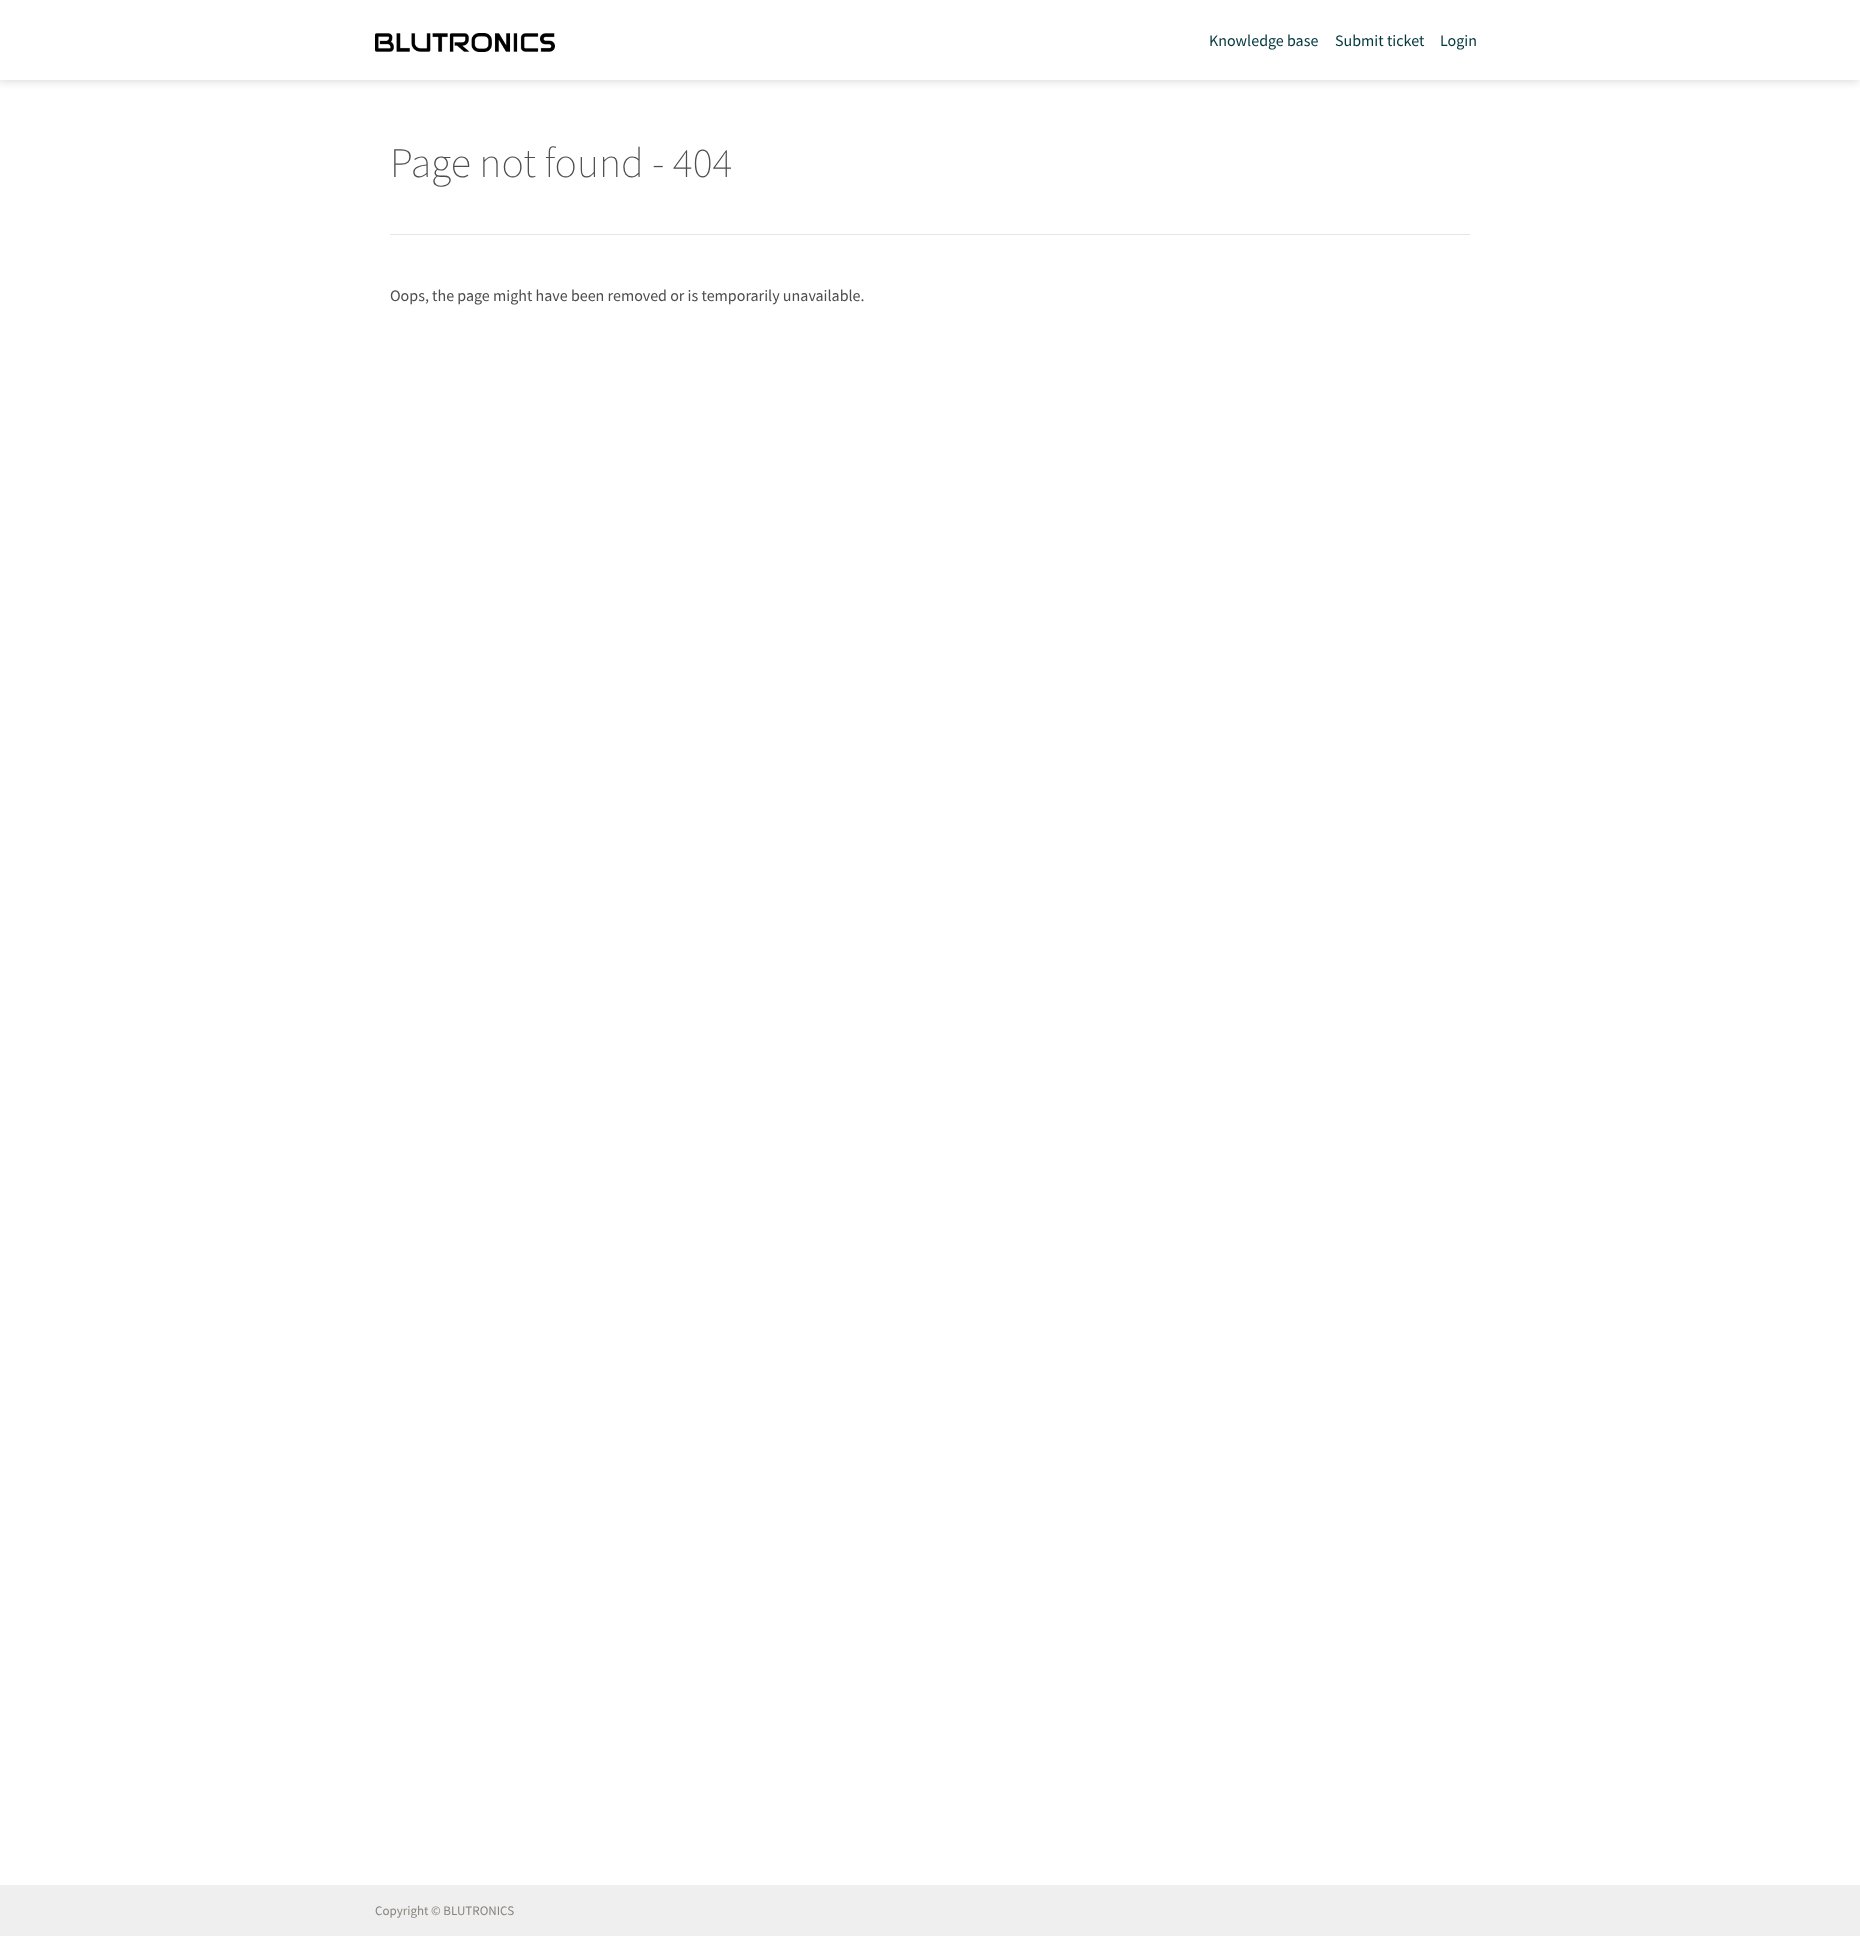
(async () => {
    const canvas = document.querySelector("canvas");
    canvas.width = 1860;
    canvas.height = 1936;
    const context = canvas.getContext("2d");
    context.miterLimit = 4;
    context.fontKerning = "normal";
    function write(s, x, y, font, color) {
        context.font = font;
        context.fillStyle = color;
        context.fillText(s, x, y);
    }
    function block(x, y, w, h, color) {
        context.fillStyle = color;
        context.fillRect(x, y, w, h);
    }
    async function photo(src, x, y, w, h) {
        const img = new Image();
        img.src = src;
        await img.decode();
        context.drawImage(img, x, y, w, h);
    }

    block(0, 0, 1860, 1936, "rgb(255, 255, 255)");
    context.save();
    context.beginPath();
    context.rect(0, 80, 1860, 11);
    context.clip();
    context.fillStyle = "rgb(221, 221, 221)";
    context.filter = "blur(4.5px)";
    context.beginPath();
    context.rect(-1, 2, 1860, 80);
    context.fill();
    context.filter = "none";
    context.restore();
    await photo("media/1.png", 375, 33, 180, 19);
    write("Knowledge base", 1209, 46, "16px Source Sans Pro", "rgb(3, 54, 61)");
    write("Submit ticket", 1335, 46, "16px Source Sans Pro", "rgb(3, 54, 61)");
    write("Login", 1440, 46, "16px Source Sans Pro", "rgb(3, 54, 61)");
    write("Page not found - 404", 390, 177, "200 42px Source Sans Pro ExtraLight", "rgb(77, 77, 77)");
    block(390, 234, 1080, 1, "rgb(230, 230, 230)");
    write("Oops, the page might have been removed or is temporarily unavailable.", 390, 301, "16px Source Sans Pro", "rgb(77, 77, 77)");
    block(0, 1885, 1860, 51, "rgb(239, 239, 239)");
    write("Copyright © BLUTRONICS", 375, 1915, "13px Source Sans Pro", "rgb(136, 131, 127)");
})();
